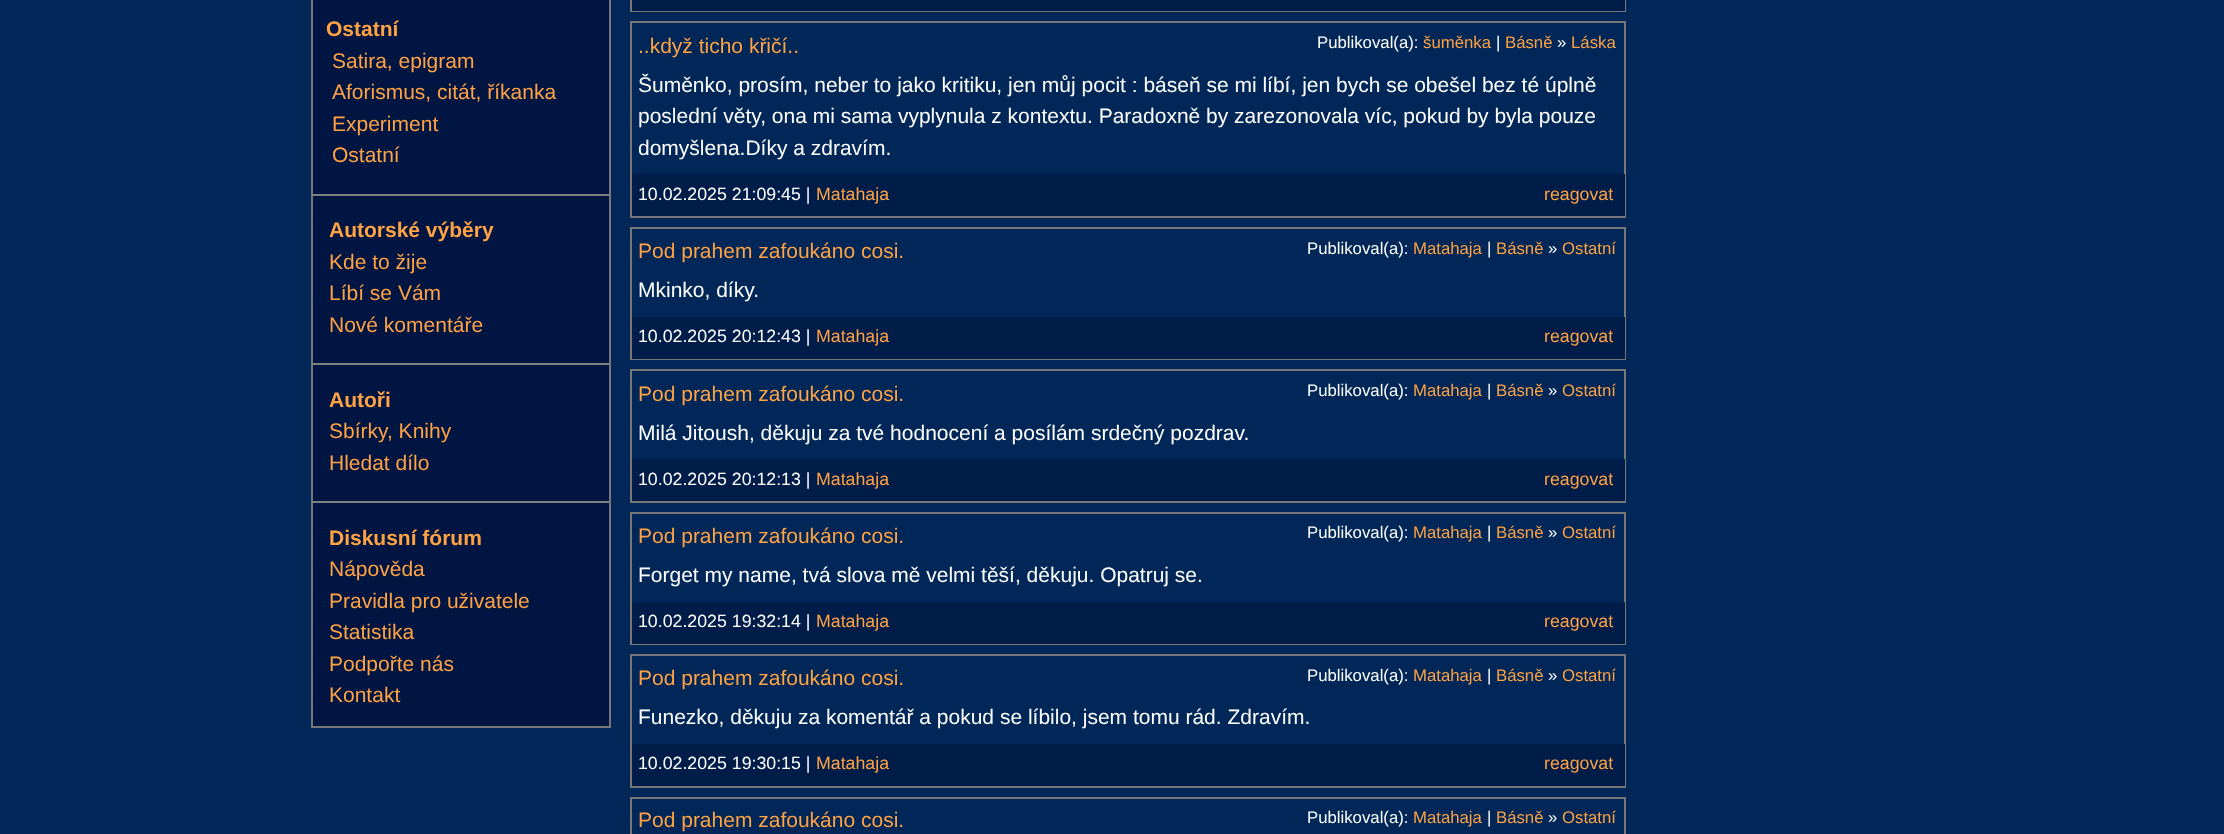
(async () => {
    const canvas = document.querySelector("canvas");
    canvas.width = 2224;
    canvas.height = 834;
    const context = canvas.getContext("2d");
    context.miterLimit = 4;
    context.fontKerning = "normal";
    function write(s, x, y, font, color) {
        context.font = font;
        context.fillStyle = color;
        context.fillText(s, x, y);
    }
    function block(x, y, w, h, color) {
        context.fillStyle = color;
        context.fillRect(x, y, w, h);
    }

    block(0, 0, 2224, 834, "rgb(0, 39, 87)");
    context.fillStyle = "rgb(0, 21, 65)";
    context.beginPath();
    context.rect(312, -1, 298, 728);
    context.fill();
    context.strokeStyle = "rgb(119, 119, 119)";
    context.lineWidth = 2;
    context.stroke();
    write("Ostatní", 326, 36, "bold 21px Liberation Sans", "rgb(255, 162, 68)");
    write("Satira, epigram", 332, 68, "21px Liberation Sans", "rgb(255, 162, 68)");
    write("Aforismus, citát, říkanka", 332, 99, "21px Liberation Sans", "rgb(255, 162, 68)");
    write("Experiment", 332, 131, "21px Liberation Sans", "rgb(255, 162, 68)");
    write("Ostatní", 332, 162, "21px Liberation Sans", "rgb(255, 162, 68)");
    block(312, 194, 297, 2, "rgb(128, 128, 128)");
    write("Autorské výběry", 329, 237, "bold 21px Liberation Sans", "rgb(255, 162, 68)");
    write("Kde to žije", 329, 269, "21px Liberation Sans", "rgb(255, 162, 68)");
    write("Líbí se Vám", 329, 300, "21px Liberation Sans", "rgb(255, 162, 68)");
    write("Nové komentáře", 329, 332, "21px Liberation Sans", "rgb(255, 162, 68)");
    block(312, 363, 297, 2, "rgb(128, 128, 128)");
    write("Autoři", 329, 407, "bold 21px Liberation Sans", "rgb(255, 162, 68)");
    write("Sbírky, Knihy", 329, 438, "21px Liberation Sans", "rgb(255, 162, 68)");
    write("Hledat dílo", 329, 470, "21px Liberation Sans", "rgb(255, 162, 68)");
    block(312, 501, 297, 2, "rgb(128, 128, 128)");
    write("Diskusní fórum", 329, 545, "bold 21px Liberation Sans", "rgb(255, 162, 68)");
    write("Nápověda", 329, 576, "21px Liberation Sans", "rgb(255, 162, 68)");
    write("Pravidla pro uživatele", 329, 608, "21px Liberation Sans", "rgb(255, 162, 68)");
    write("Statistika", 329, 639, "21px Liberation Sans", "rgb(255, 162, 68)");
    write("Podpořte nás", 329, 671, "21px Liberation Sans", "rgb(255, 162, 68)");
    write("Kontakt", 329, 702, "21px Liberation Sans", "rgb(255, 162, 68)");
    context.strokeRect(631, -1, 994, 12);
    block(632, 0, 993, 11, "rgb(0, 29, 73)");
    context.strokeRect(631, 22, 994, 195);
    write("..když ticho křičí..", 638, 53, "21px Liberation Sans", "rgb(255, 162, 68)");
    write("Publikoval(a):", 1317, 48, "16.75px Liberation Sans", "rgb(255, 255, 255)");
    write("šuměnka", 1423, 48, "16.75px Liberation Sans", "rgb(255, 162, 68)");
    write("|", 1496, 48, "16.75px Liberation Sans", "rgb(255, 255, 255)");
    write("Básně", 1505, 48, "16.75px Liberation Sans", "rgb(255, 162, 68)");
    write("»", 1557, 48, "16.75px Liberation Sans", "rgb(255, 255, 255)");
    write("Láska", 1571, 48, "16.75px Liberation Sans", "rgb(255, 162, 68)");
    write("Šuměnko, prosím, neber to jako kritiku, jen můj pocit : báseň se mi líbí, jen bych se obešel bez té úplně", 638, 92, "21px Liberation Sans", "rgb(255, 255, 255)");
    write("poslední věty, ona mi sama vyplynula z kontextu. Paradoxně by zarezonovala víc, pokud by byla pouze", 638, 123, "21px Liberation Sans", "rgb(255, 255, 255)");
    write("domyšlena.Díky a zdravím.", 638, 155, "21px Liberation Sans", "rgb(255, 255, 255)");
    block(632, 174, 993, 42, "rgb(0, 29, 73)");
    write("10.02.2025 21:09:45 |", 638, 200, "17.75px Liberation Sans", "rgb(255, 255, 255)");
    write("Matahaja", 816, 200, "17.75px Liberation Sans", "rgb(255, 162, 68)");
    write("reagovat", 1544, 200, "17.75px Liberation Sans", "rgb(255, 162, 68)");
    context.strokeRect(631, 228, 994, 131);
    write("Pod prahem zafoukáno cosi.", 638, 258, "21px Liberation Sans", "rgb(255, 162, 68)");
    write("Publikoval(a):", 1307, 254, "16.75px Liberation Sans", "rgb(255, 255, 255)");
    write("Matahaja", 1413, 254, "16.75px Liberation Sans", "rgb(255, 162, 68)");
    write("|", 1487, 254, "16.75px Liberation Sans", "rgb(255, 255, 255)");
    write("Básně", 1496, 254, "16.75px Liberation Sans", "rgb(255, 162, 68)");
    write("»", 1548, 254, "16.75px Liberation Sans", "rgb(255, 255, 255)");
    write("Ostatní", 1562, 254, "16.75px Liberation Sans", "rgb(255, 162, 68)");
    write("Mkinko, díky.", 638, 297, "21px Liberation Sans", "rgb(255, 255, 255)");
    block(632, 317, 993, 42, "rgb(0, 29, 73)");
    write("10.02.2025 20:12:43 |", 638, 342, "17.75px Liberation Sans", "rgb(255, 255, 255)");
    write("Matahaja", 816, 342, "17.75px Liberation Sans", "rgb(255, 162, 68)");
    write("reagovat", 1544, 342, "17.75px Liberation Sans", "rgb(255, 162, 68)");
    context.strokeRect(631, 370, 994, 132);
    write("Pod prahem zafoukáno cosi.", 638, 401, "21px Liberation Sans", "rgb(255, 162, 68)");
    write("Publikoval(a):", 1307, 396, "16.75px Liberation Sans", "rgb(255, 255, 255)");
    write("Matahaja", 1413, 396, "16.75px Liberation Sans", "rgb(255, 162, 68)");
    write("|", 1487, 396, "16.75px Liberation Sans", "rgb(255, 255, 255)");
    write("Básně", 1496, 396, "16.75px Liberation Sans", "rgb(255, 162, 68)");
    write("»", 1548, 396, "16.75px Liberation Sans", "rgb(255, 255, 255)");
    write("Ostatní", 1562, 396, "16.75px Liberation Sans", "rgb(255, 162, 68)");
    write("Milá Jitoush, děkuju za tvé hodnocení a posílám srdečný pozdrav.", 638, 440, "21px Liberation Sans", "rgb(255, 255, 255)");
    block(632, 459, 993, 42, "rgb(0, 29, 73)");
    write("10.02.2025 20:12:13 |", 638, 485, "17.75px Liberation Sans", "rgb(255, 255, 255)");
    write("Matahaja", 816, 485, "17.75px Liberation Sans", "rgb(255, 162, 68)");
    write("reagovat", 1544, 485, "17.75px Liberation Sans", "rgb(255, 162, 68)");
    context.strokeRect(631, 513, 994, 131);
    write("Pod prahem zafoukáno cosi.", 638, 543, "21px Liberation Sans", "rgb(255, 162, 68)");
    write("Publikoval(a):", 1307, 538, "16.75px Liberation Sans", "rgb(255, 255, 255)");
    write("Matahaja", 1413, 538, "16.75px Liberation Sans", "rgb(255, 162, 68)");
    write("|", 1487, 538, "16.75px Liberation Sans", "rgb(255, 255, 255)");
    write("Básně", 1496, 538, "16.75px Liberation Sans", "rgb(255, 162, 68)");
    write("»", 1548, 538, "16.75px Liberation Sans", "rgb(255, 255, 255)");
    write("Ostatní", 1562, 538, "16.75px Liberation Sans", "rgb(255, 162, 68)");
    write("Forget my name, tvá slova mě velmi těší, děkuju. Opatruj se.", 638, 582, "21px Liberation Sans", "rgb(255, 255, 255)");
    block(632, 602, 993, 42, "rgb(0, 29, 73)");
    write("10.02.2025 19:32:14 |", 638, 627, "17.75px Liberation Sans", "rgb(255, 255, 255)");
    write("Matahaja", 816, 627, "17.75px Liberation Sans", "rgb(255, 162, 68)");
    write("reagovat", 1544, 627, "17.75px Liberation Sans", "rgb(255, 162, 68)");
    context.strokeRect(631, 655, 994, 132);
    write("Pod prahem zafoukáno cosi.", 638, 685, "21px Liberation Sans", "rgb(255, 162, 68)");
    write("Publikoval(a):", 1307, 681, "16.75px Liberation Sans", "rgb(255, 255, 255)");
    write("Matahaja", 1413, 681, "16.75px Liberation Sans", "rgb(255, 162, 68)");
    write("|", 1487, 681, "16.75px Liberation Sans", "rgb(255, 255, 255)");
    write("Básně", 1496, 681, "16.75px Liberation Sans", "rgb(255, 162, 68)");
    write("»", 1548, 681, "16.75px Liberation Sans", "rgb(255, 255, 255)");
    write("Ostatní", 1562, 681, "16.75px Liberation Sans", "rgb(255, 162, 68)");
    write("Funezko, děkuju za komentář a pokud se líbilo, jsem tomu rád. Zdravím.", 638, 724, "21px Liberation Sans", "rgb(255, 255, 255)");
    block(632, 744, 993, 42, "rgb(0, 29, 73)");
    write("10.02.2025 19:30:15 |", 638, 769, "17.75px Liberation Sans", "rgb(255, 255, 255)");
    write("Matahaja", 816, 769, "17.75px Liberation Sans", "rgb(255, 162, 68)");
    write("reagovat", 1544, 769, "17.75px Liberation Sans", "rgb(255, 162, 68)");
    context.strokeRect(631, 798, 994, 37);
    write("Pod prahem zafoukáno cosi.", 638, 827, "21px Liberation Sans", "rgb(255, 162, 68)");
    write("Publikoval(a):", 1307, 823, "16.75px Liberation Sans", "rgb(255, 255, 255)");
    write("Matahaja", 1413, 823, "16.75px Liberation Sans", "rgb(255, 162, 68)");
    write("|", 1487, 823, "16.75px Liberation Sans", "rgb(255, 255, 255)");
    write("Básně", 1496, 823, "16.75px Liberation Sans", "rgb(255, 162, 68)");
    write("»", 1548, 823, "16.75px Liberation Sans", "rgb(255, 255, 255)");
    write("Ostatní", 1562, 823, "16.75px Liberation Sans", "rgb(255, 162, 68)");
})();
